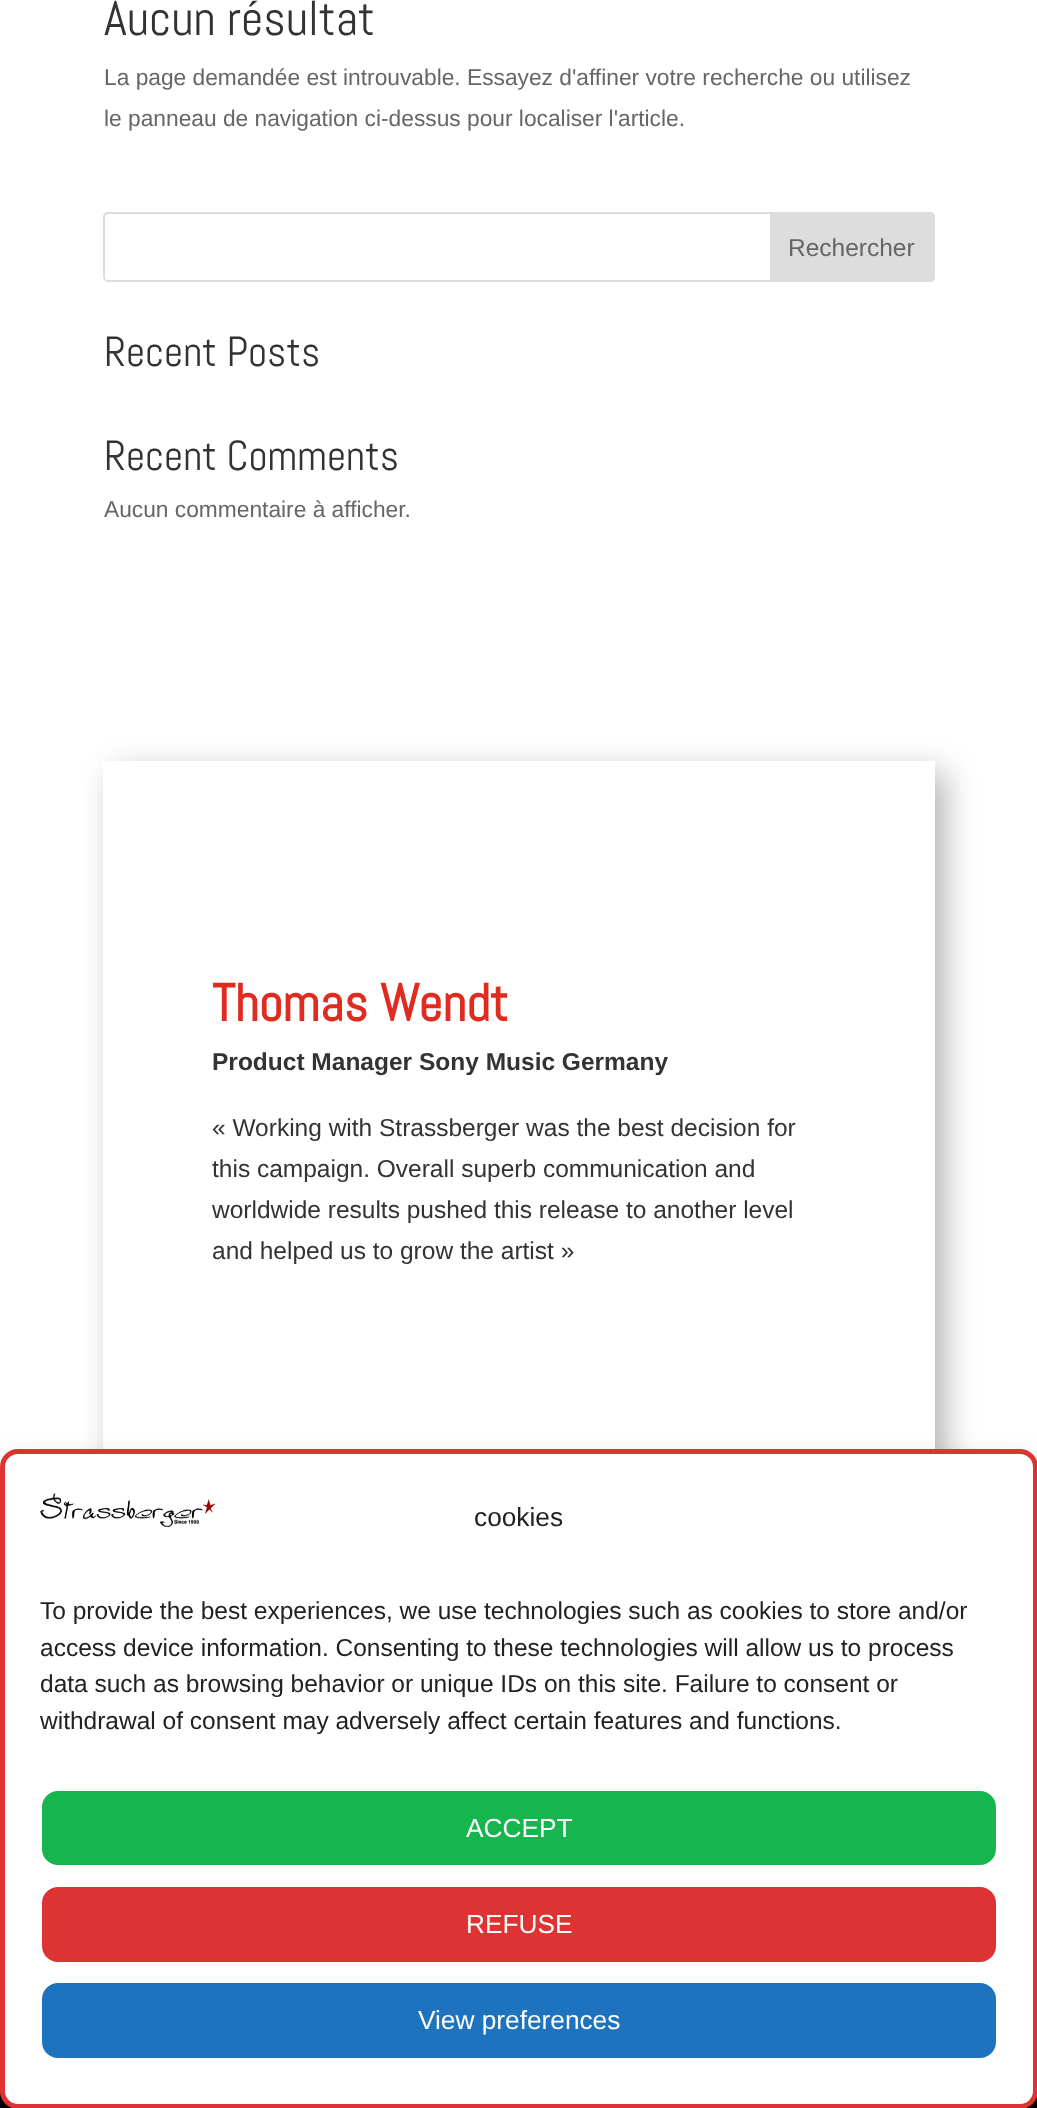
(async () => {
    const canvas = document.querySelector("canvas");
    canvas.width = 1037;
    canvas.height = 2108;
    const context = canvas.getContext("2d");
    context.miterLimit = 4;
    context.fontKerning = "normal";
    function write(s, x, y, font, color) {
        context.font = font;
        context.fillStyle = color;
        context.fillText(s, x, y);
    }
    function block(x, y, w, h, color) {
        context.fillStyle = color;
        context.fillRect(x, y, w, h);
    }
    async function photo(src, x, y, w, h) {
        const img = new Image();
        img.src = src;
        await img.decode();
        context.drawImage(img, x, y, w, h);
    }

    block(0, 0, 1037, 2108, "rgb(255, 255, 255)");
    write("Aucun résultat", 104, 35, "49px Abel", "rgb(51, 51, 51)");
    write("La page demandée est introuvable. Essayez d'affiner votre recherche ou utilisez", 104, 85, "22.75px Liberation Sans", "rgb(102, 102, 102)");
    write("le panneau de navigation ci-dessus pour localiser l'article.", 104, 126, "22.75px Liberation Sans", "rgb(102, 102, 102)");
    context.beginPath();
    context.roundRect(104, 213, 830, 68, 4);
    context.strokeStyle = "rgb(221, 221, 221)";
    context.lineWidth = 2;
    context.stroke();
    context.fillStyle = "rgb(221, 221, 221)";
    context.beginPath();
    context.roundRect(771, 213, 163, 68, [0, 4, 4, 0]);
    context.fill();
    context.stroke();
    write("Rechercher", 788, 256, "24.5px Liberation Sans", "rgb(102, 102, 102)");
    write("Recent Posts", 104, 366, "42px Abel", "rgb(51, 51, 51)");
    write("Recent Comments", 104, 470, "42px Abel", "rgb(51, 51, 51)");
    write("Aucun commentaire à afficher.", 104, 517, "22.75px Liberation Sans", "rgb(102, 102, 102)");
    context.save();
    context.beginPath();
    context.moveTo(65, 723);
    context.lineTo(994, 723);
    context.lineTo(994, 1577);
    context.lineTo(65, 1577);
    context.closePath();
    context.moveTo(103, 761);
    context.lineTo(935, 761);
    context.lineTo(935, 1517);
    context.lineTo(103, 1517);
    context.closePath();
    context.clip("evenodd");
    context.fillStyle = "rgba(0, 0, 0, 0.3)";
    context.filter = "blur(16px)";
    context.beginPath();
    context.rect(114, 772, 831, 756);
    context.fill();
    context.filter = "none";
    context.restore();
    write("Thomas Wendt", 212, 1021, "bold 52.5px Abel", "rgb(224, 43, 32)");
    write("Product Manager Sony Music Germany", 212, 1070, "bold 24.5px Liberation Sans", "rgb(51, 51, 51)");
    write("« Working with Strassberger was the best decision for", 212, 1136, "24.5px Liberation Sans", "rgb(51, 51, 51)");
    write("this campaign. Overall superb communication and", 212, 1177, "24.5px Liberation Sans", "rgb(51, 51, 51)");
    write("worldwide results pushed this release to another level", 212, 1218, "24.5px Liberation Sans", "rgb(51, 51, 51)");
    write("and helped us to grow the artist »", 212, 1259, "24.5px Liberation Sans", "rgb(51, 51, 51)");
    block(0, 2091, 1037, 17, "rgb(0, 0, 0)");
    context.fillStyle = "rgba(0, 0, 0, 0.23)";
    context.filter = "blur(5px)";
    context.beginPath();
    context.roundRect(0, 1460, 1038, 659, 18);
    context.fill();
    context.filter = "none";
    context.fillStyle = "rgba(0, 0, 0, 0.19)";
    context.filter = "blur(17.5px)";
    context.beginPath();
    context.roundRect(0, 1467, 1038, 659, 18);
    context.fill();
    context.filter = "none";
    context.fillStyle = "rgb(255, 255, 255)";
    context.beginPath();
    context.roundRect(2.5, 1451.5, 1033, 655, 15.5);
    context.fill();
    context.strokeStyle = "rgb(221, 51, 51)";
    context.lineWidth = 5;
    context.stroke();
    await photo("media/1.png", 40, 1493, 176, 34);
    write("cookies", 474, 1526, "26.25px Liberation Sans", "rgb(34, 34, 34)");
    write("To provide the best experiences, we use technologies such as cookies to store and/or", 40, 1619, "24.5px Liberation Sans", "rgb(34, 34, 34)");
    write("access device information. Consenting to these technologies will allow us to process", 40, 1656, "24.5px Liberation Sans", "rgb(34, 34, 34)");
    write("data such as browsing behavior or unique IDs on this site. Failure to consent or", 40, 1692, "24.5px Liberation Sans", "rgb(34, 34, 34)");
    write("withdrawal of consent may adversely affect certain features and functions.", 40, 1729, "24.5px Liberation Sans", "rgb(34, 34, 34)");
    context.fillStyle = "rgb(23, 181, 78)";
    context.beginPath();
    context.roundRect(41, 1790, 956, 76, 17);
    context.fill();
    context.strokeStyle = "rgb(255, 255, 255)";
    context.lineWidth = 2;
    context.stroke();
    write("ACCEPT", 466, 1837, "26.25px Liberation Sans", "rgb(255, 255, 255)");
    context.fillStyle = "rgb(221, 51, 51)";
    context.beginPath();
    context.roundRect(41, 1886, 956, 77, 17);
    context.fill();
    context.stroke();
    write("REFUSE", 466, 1933, "26.25px Liberation Sans", "rgb(255, 255, 255)");
    context.fillStyle = "rgb(30, 115, 190)";
    context.beginPath();
    context.roundRect(41, 1982, 956, 77, 17);
    context.fill();
    context.stroke();
    write("View preferences", 418, 2029, "26.25px Liberation Sans", "rgb(255, 255, 255)");
})();
